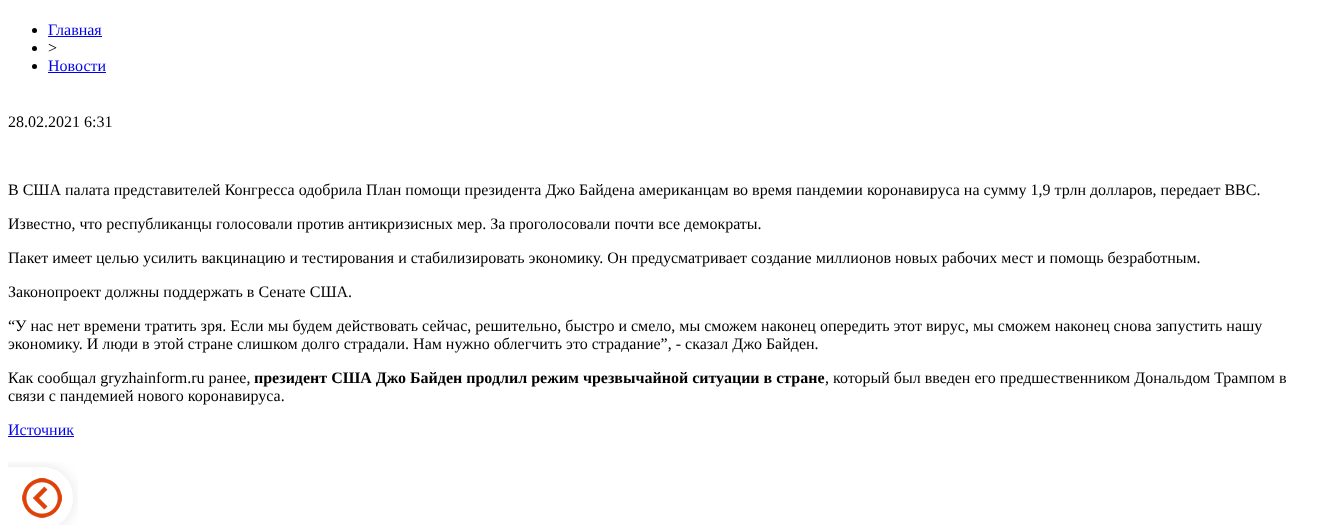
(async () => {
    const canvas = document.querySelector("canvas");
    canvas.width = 1317;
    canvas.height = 525;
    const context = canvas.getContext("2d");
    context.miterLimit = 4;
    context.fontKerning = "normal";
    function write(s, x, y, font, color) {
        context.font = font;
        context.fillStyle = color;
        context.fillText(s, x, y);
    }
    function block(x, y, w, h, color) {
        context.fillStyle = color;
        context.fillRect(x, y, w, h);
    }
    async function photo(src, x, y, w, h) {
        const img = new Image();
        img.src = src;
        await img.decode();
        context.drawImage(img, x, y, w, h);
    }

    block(0, 0, 1317, 525, "rgb(255, 255, 255)");
    context.fillStyle = "rgb(0, 0, 0)";
    context.beginPath();
    context.arc(34.5, 30.5, 2.5, 0, Math.PI * 2);
    context.fill();
    write("Главная", 48, 35, "16px Liberation Serif", "rgb(0, 0, 238)");
    block(48, 36, 54, 1, "rgb(0, 0, 238)");
    context.fillStyle = "rgb(0, 0, 0)";
    context.beginPath();
    context.arc(34.5, 48.5, 2.5, 0, Math.PI * 2);
    context.fill();
    write(">", 48, 53, "16px Liberation Serif", "rgb(0, 0, 0)");
    context.beginPath();
    context.arc(34.5, 66.5, 2.5, 0, Math.PI * 2);
    context.fill();
    write("Новости", 48, 71, "16px Liberation Serif", "rgb(0, 0, 238)");
    block(48, 72, 58, 1, "rgb(0, 0, 238)");
    write("28.02.2021 6:31", 8, 127, "16px Liberation Serif", "rgb(0, 0, 0)");
    write("В США палата представителей Конгресса одобрила План помощи президента Джо Байдена американцам во время пандемии коронавируса на сумму 1,9 трлн долларов, передает ВВС.", 8, 195, "16px Liberation Serif", "rgb(0, 0, 0)");
    write("Известно, что республиканцы голосовали против антикризисных мер. За проголосовали почти все демократы.", 8, 229, "16px Liberation Serif", "rgb(0, 0, 0)");
    write("Пакет имеет целью усилить вакцинацию и тестирования и стабилизировать экономику. Он предусматривает создание миллионов новых рабочих мест и помощь безработным.", 8, 263, "16px Liberation Serif", "rgb(0, 0, 0)");
    write("Законопроект должны поддержать в Сенате США.", 8, 297, "16px Liberation Serif", "rgb(0, 0, 0)");
    write("“У нас нет времени тратить зря. Если мы будем действовать сейчас, решительно, быстро и смело, мы сможем наконец опередить этот вирус, мы сможем наконец снова запустить нашу", 8, 331, "16px Liberation Serif", "rgb(0, 0, 0)");
    write("экономику. И люди в этой стране слишком долго страдали. Нам нужно облегчить это страдание”, - сказал Джо Байден.", 8, 349, "16px Liberation Serif", "rgb(0, 0, 0)");
    write("Как сообщал gryzhainform.ru ранее,", 8, 383, "16px Liberation Serif", "rgb(0, 0, 0)");
    write("президент США Джо Байден продлил режим чрезвычайной ситуации в стране", 254, 383, "bold 16px Liberation Serif", "rgb(0, 0, 0)");
    write(", который был введен его предшественником Дональдом Трампом в", 825, 383, "16px Liberation Serif", "rgb(0, 0, 0)");
    write("связи с пандемией нового коронавируса.", 8, 401, "16px Liberation Serif", "rgb(0, 0, 0)");
    write("Источник", 8, 435, "16px Liberation Serif", "rgb(0, 0, 238)");
    block(8, 436, 66, 1, "rgb(0, 0, 238)");
    await photo("media/1.png", 8, 462, 70, 63);
})();
